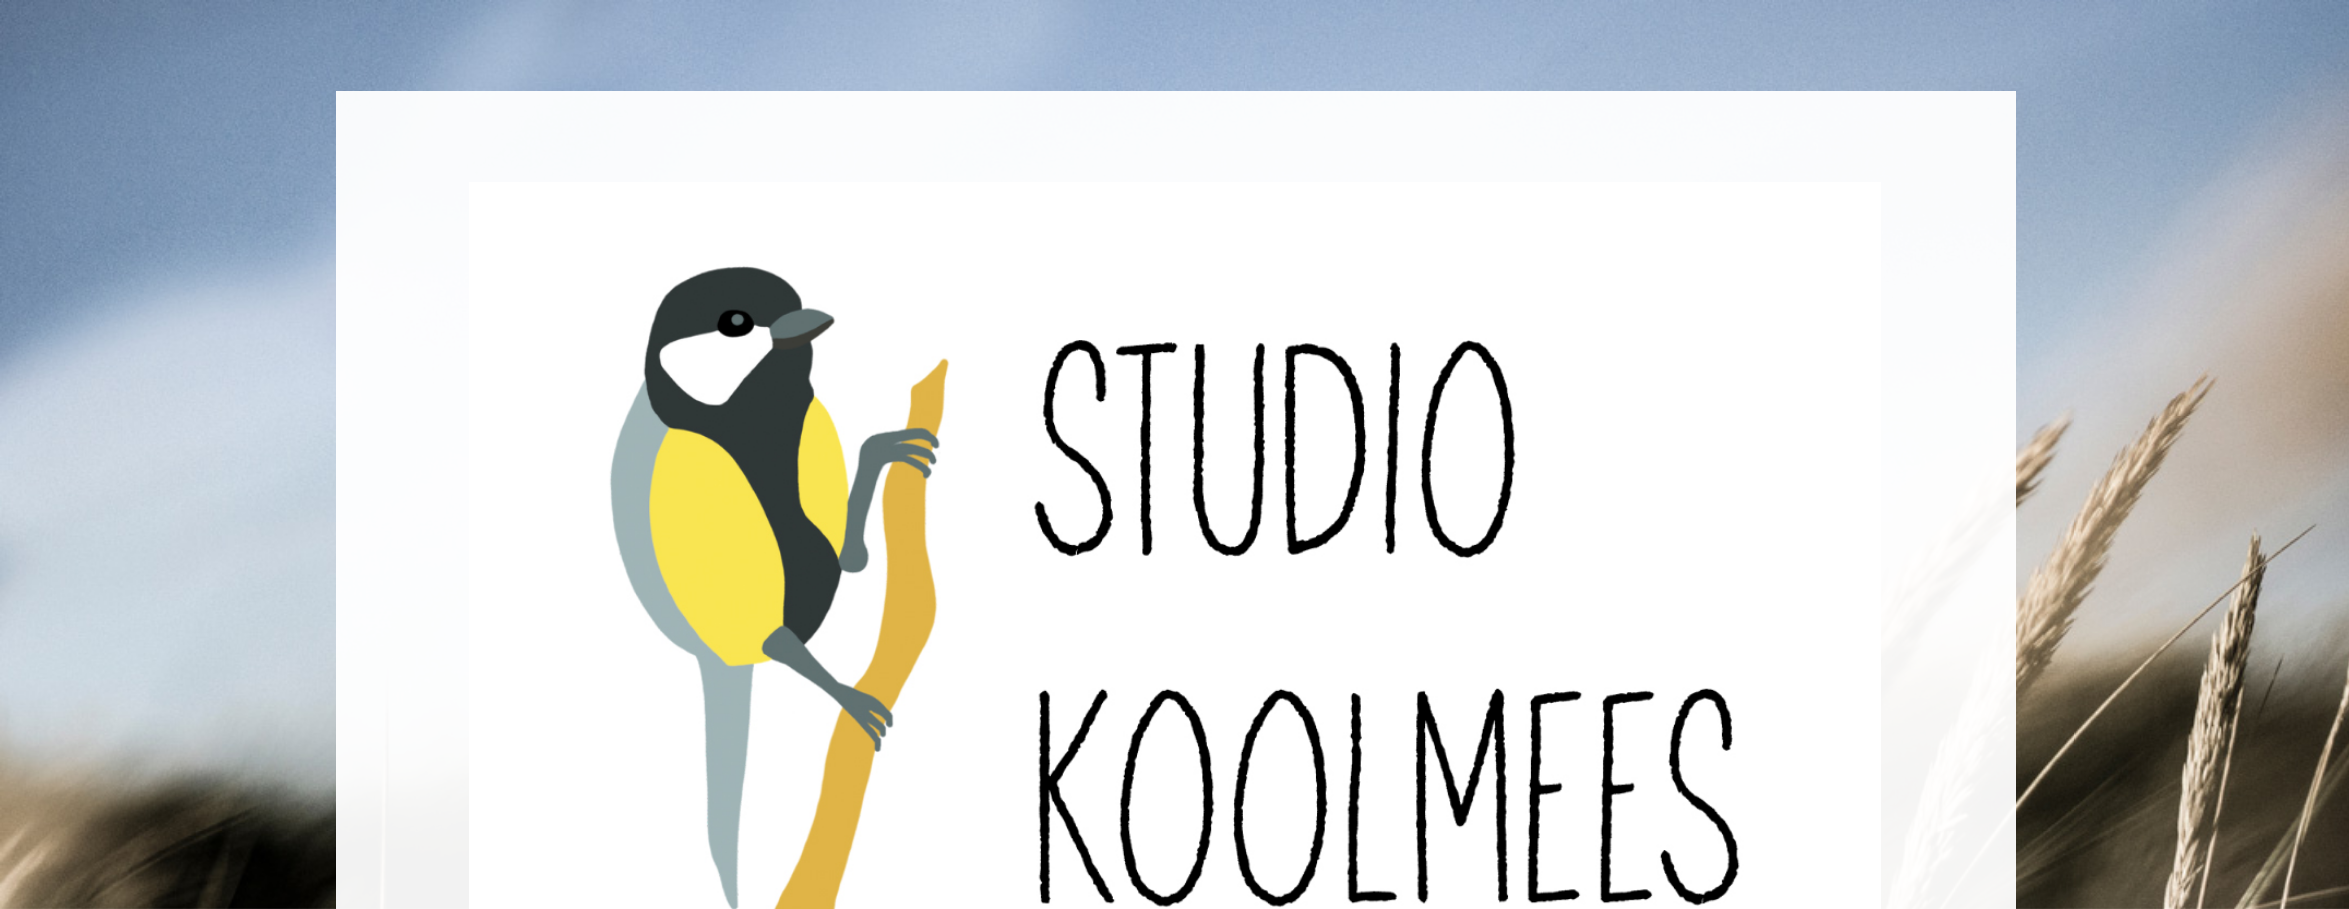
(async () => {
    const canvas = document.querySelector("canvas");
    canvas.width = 2349;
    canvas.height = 909;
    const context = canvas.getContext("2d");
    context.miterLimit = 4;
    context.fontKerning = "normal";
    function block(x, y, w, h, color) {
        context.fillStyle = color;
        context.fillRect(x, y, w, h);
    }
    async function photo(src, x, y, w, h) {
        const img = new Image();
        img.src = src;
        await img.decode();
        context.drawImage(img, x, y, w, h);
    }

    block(0, 0, 2349, 909, "rgb(255, 255, 255)");
    await photo("media/1.png", 0, 0, 2349, 909);
    block(336, 91, 1680, 818, "rgba(255, 255, 255, 0.95)");
    await photo("media/2.png", 469, 182, 1412, 727);
})();
